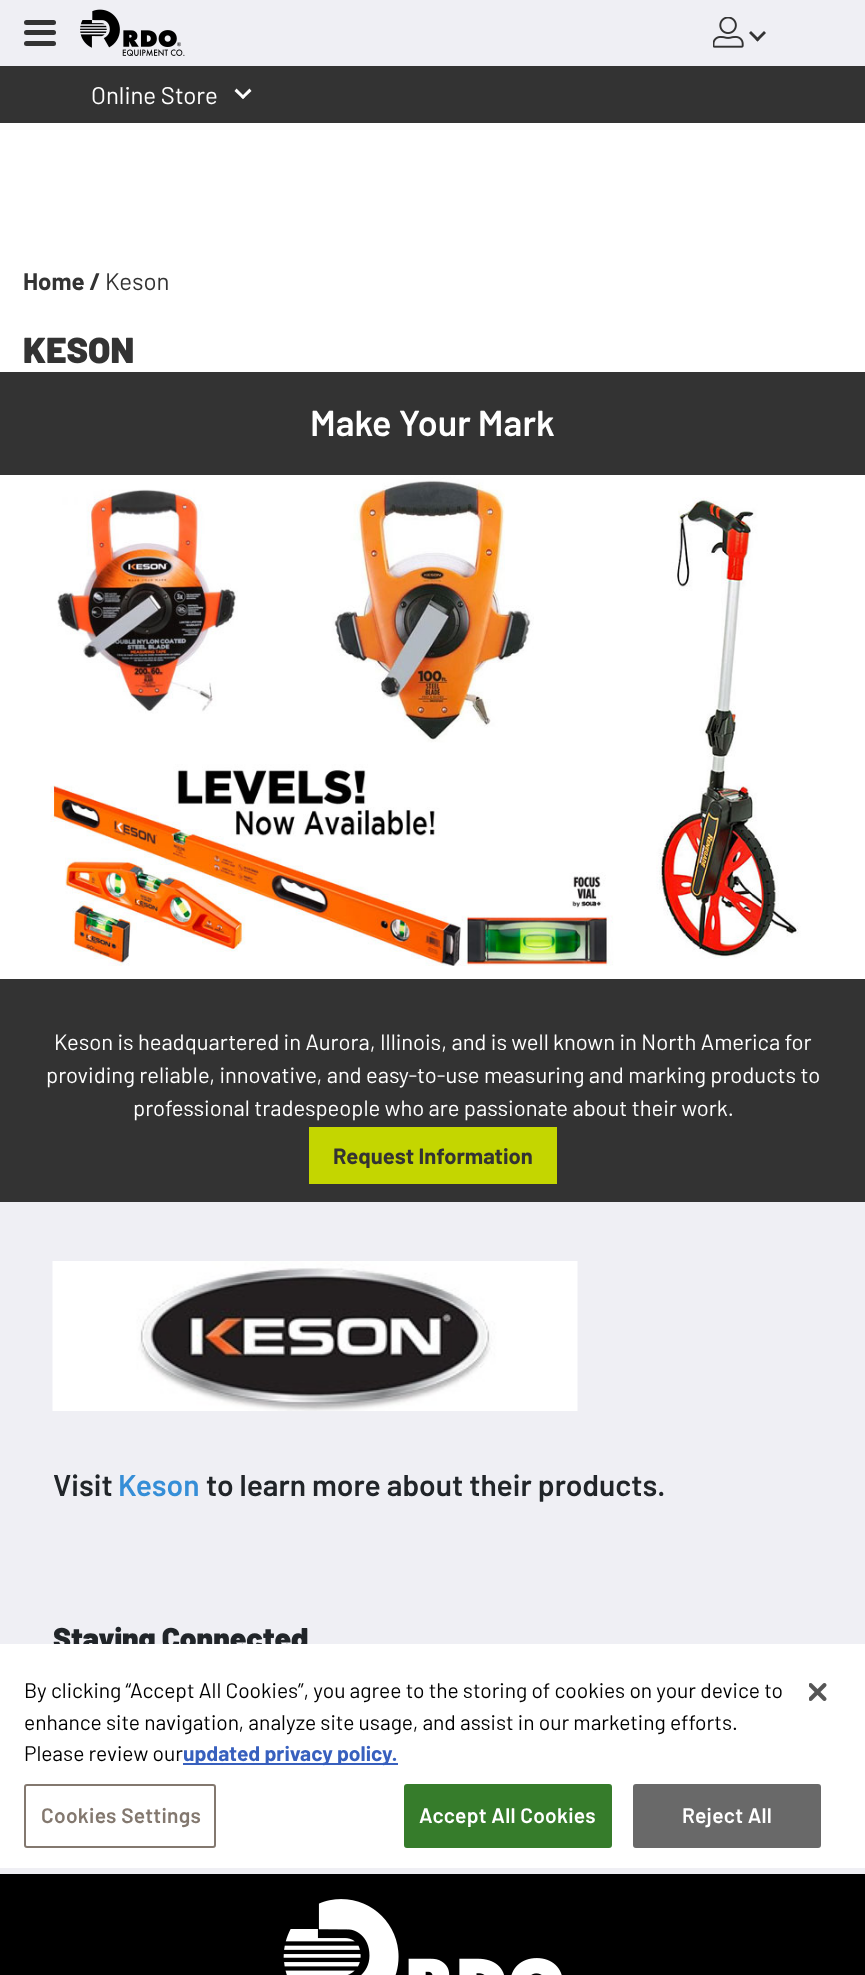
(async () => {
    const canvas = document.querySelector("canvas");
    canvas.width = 865;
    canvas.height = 1975;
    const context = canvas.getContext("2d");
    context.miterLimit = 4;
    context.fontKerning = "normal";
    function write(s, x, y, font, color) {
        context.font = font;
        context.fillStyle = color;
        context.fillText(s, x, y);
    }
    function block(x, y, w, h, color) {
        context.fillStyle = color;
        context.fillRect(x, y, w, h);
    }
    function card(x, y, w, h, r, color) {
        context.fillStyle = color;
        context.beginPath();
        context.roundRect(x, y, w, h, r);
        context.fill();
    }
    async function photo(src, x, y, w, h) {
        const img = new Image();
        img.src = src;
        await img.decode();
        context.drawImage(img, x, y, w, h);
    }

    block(0, 0, 865, 1975, "rgb(239, 239, 244)");
    card(24, 20, 32, 5, 2.5, "rgb(51, 51, 51)");
    card(24, 30, 32, 5, 2.5, "rgb(51, 51, 51)");
    card(24, 41, 32, 5, 2.5, "rgb(51, 51, 51)");
    await photo("media/1.png", 80, 9, 105, 47);
    await photo("media/2.png", 713, 17, 31, 31);
    context.beginPath();
    context.moveTo(764, 31);
    context.lineTo(766, 33);
    context.lineTo(757.5, 41.5);
    context.lineTo(755.5, 39.5);
    context.closePath();
    context.fill();
    context.beginPath();
    context.moveTo(751, 31);
    context.lineTo(759.5, 39.5);
    context.lineTo(757.5, 41.5);
    context.lineTo(749, 33);
    context.closePath();
    context.fill();
    block(0, 66, 865, 57, "rgb(51, 51, 51)");
    write("Online Store", 91, 104, "24px Barlow", "rgb(255, 255, 255)");
    context.beginPath();
    context.moveTo(249.5, 88.5);
    context.lineTo(251.5, 91);
    context.lineTo(243, 99);
    context.lineTo(241, 97);
    context.closePath();
    context.fill();
    context.beginPath();
    context.moveTo(236.5, 88.5);
    context.lineTo(245, 97);
    context.lineTo(243, 99);
    context.lineTo(234.5, 91);
    context.closePath();
    context.fill();
    block(0, 123, 865, 249, "rgb(255, 255, 255)");
    write("Home /", 23, 290, "bold 24px Barlow", "rgb(51, 51, 51)");
    write("Keson", 105, 290, "24px Barlow", "rgb(51, 51, 51)");
    write("KESON", 23, 363, "900 36px Barlow", "rgb(51, 51, 51)");
    block(0, 372, 865, 830, "rgb(51, 51, 51)");
    write("Make Your Mark", 310, 436, "600 36px Barlow", "rgb(255, 255, 255)");
    await photo("media/3.png", 0, 475, 865, 504);
    write("Keson is headquartered in Aurora, Illinois, and is well known in North America for", 54, 1050, "22px Barlow", "rgb(255, 255, 255)");
    write("providing reliable, innovative, and easy-to-use measuring and marking products to", 46, 1083, "22px Barlow", "rgb(255, 255, 255)");
    write("professional tradespeople who are passionate about their work.", 133, 1116, "22px Barlow", "rgb(255, 255, 255)");
    block(309, 1127, 248, 57, "rgb(196, 214, 0)");
    write("Request Information", 333, 1164, "bold 22px Barlow", "rgb(51, 51, 51)");
    await photo("media/4.png", 52, 1261, 526, 150);
    write("Visit", 53, 1496, "600 30px Barlow", "rgb(33, 37, 41)");
    write("Keson", 118, 1496, "600 30px Barlow", "rgb(53, 142, 215)");
    write("to learn more about their products.", 206, 1496, "600 30px Barlow", "rgb(33, 37, 41)");
    write("Staying Connected", 53, 1649, "900 30px Barlow", "rgb(33, 37, 41)");
    block(0, 1644, 865, 224, "rgb(255, 255, 255)");
    write("By clicking “Accept All Cookies”, you agree to the storing of cookies on your device to", 24, 1698, "21px Barlow", "rgb(0, 0, 0)");
    write("enhance site navigation, analyze site usage, and assist in our marketing efforts.", 24, 1730, "21px Barlow", "rgb(0, 0, 0)");
    write("Please review our", 24, 1761, "21px Barlow", "rgb(0, 0, 0)");
    block(183, 1763, 215, 2, "rgb(56, 96, 190)");
    write("updated privacy policy.", 183, 1761, "bold 21px Barlow", "rgb(56, 96, 190)");
    context.beginPath();
    context.roundRect(25, 1785, 190, 62, 2);
    context.strokeStyle = "rgb(131, 120, 111)";
    context.lineWidth = 2;
    context.stroke();
    context.letterSpacing = "0.25px";
    write("Cookies Settings", 41, 1823, "600 21px Barlow", "rgb(131, 120, 111)");
    context.fillStyle = "rgb(54, 124, 43)";
    context.beginPath();
    context.roundRect(405, 1785, 206, 62, 2);
    context.fill();
    context.strokeStyle = "rgb(54, 124, 43)";
    context.stroke();
    write("Accept All Cookies", 419, 1823, "600 21px Barlow", "rgb(255, 255, 255)");
    context.fillStyle = "rgb(105, 105, 105)";
    context.beginPath();
    context.roundRect(634, 1785, 186, 62, 2);
    context.fill();
    context.strokeStyle = "rgb(105, 105, 105)";
    context.stroke();
    write("Reject All", 682, 1823, "600 21px Barlow", "rgb(255, 255, 255)");
    await photo("media/5.png", 809, 1683, 18, 18);
    block(0, 1874, 865, 101, "rgb(0, 0, 0)");
    await photo("media/6.png", 283, 1899, 279, 76);
})();
